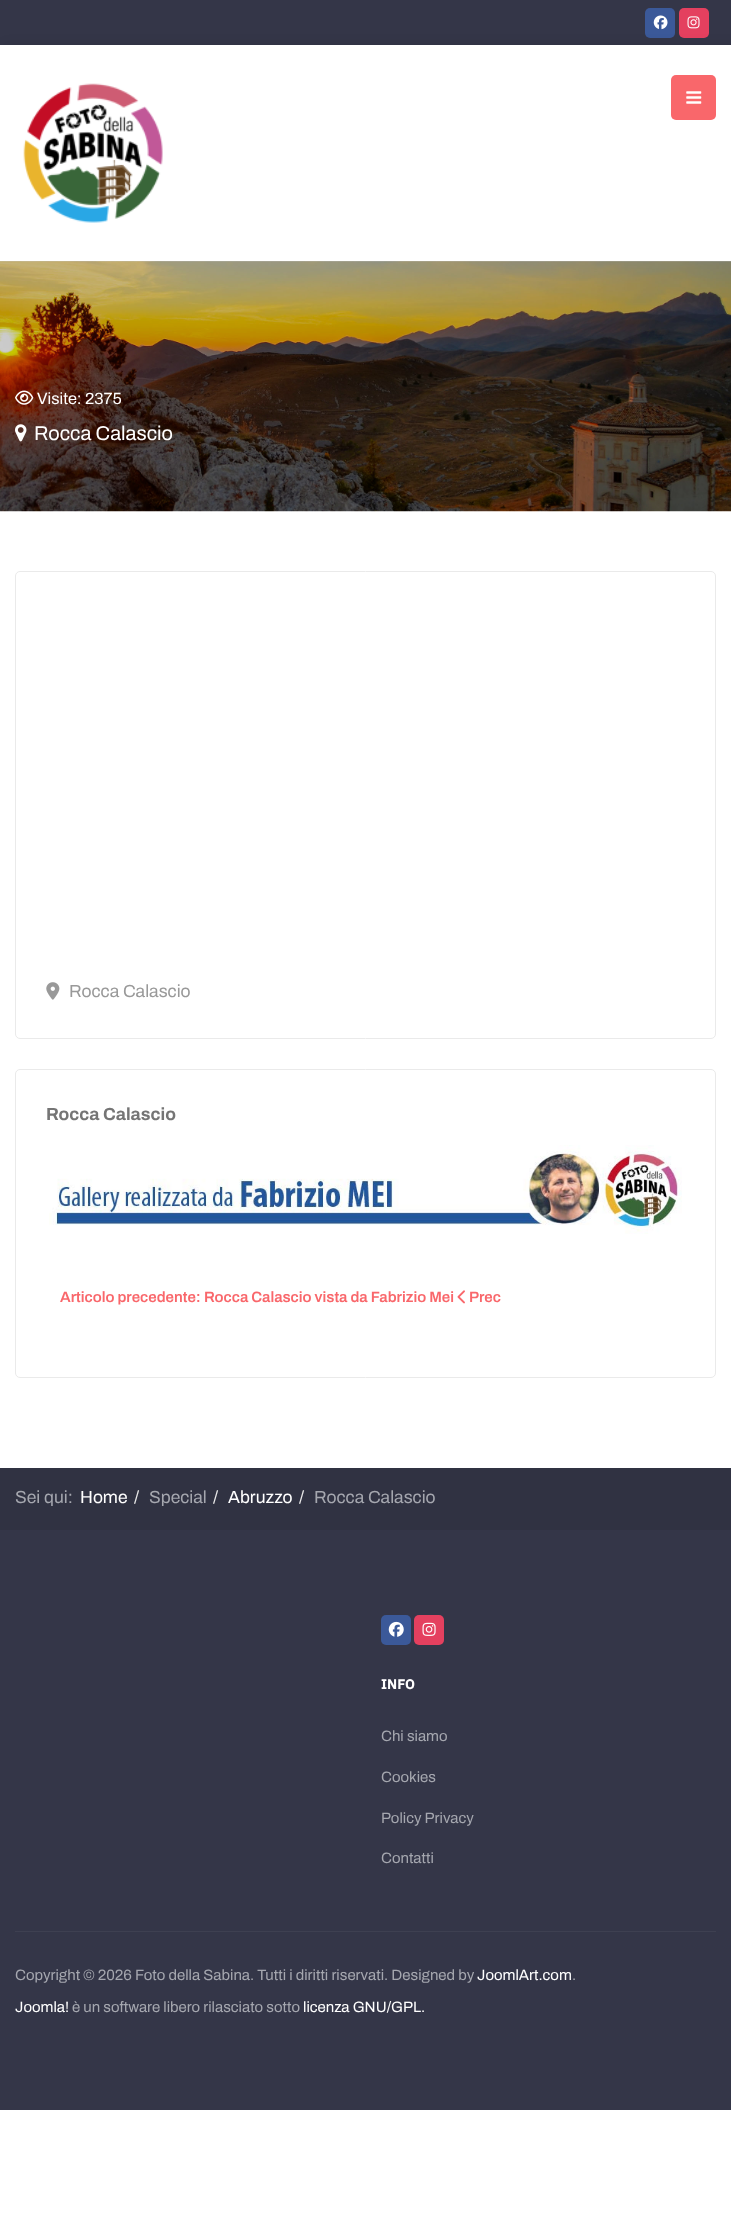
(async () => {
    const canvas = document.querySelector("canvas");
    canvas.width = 731;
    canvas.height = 2229;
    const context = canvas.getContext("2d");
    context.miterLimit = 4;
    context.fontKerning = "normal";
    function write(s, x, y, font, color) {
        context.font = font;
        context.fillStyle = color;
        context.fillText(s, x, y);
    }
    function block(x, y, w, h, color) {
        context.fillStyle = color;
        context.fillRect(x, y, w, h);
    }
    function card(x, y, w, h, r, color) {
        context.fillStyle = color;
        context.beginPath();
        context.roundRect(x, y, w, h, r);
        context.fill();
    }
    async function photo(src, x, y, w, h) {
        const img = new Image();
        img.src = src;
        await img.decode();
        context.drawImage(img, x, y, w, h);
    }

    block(0, 0, 731, 2229, "rgb(255, 255, 255)");
    block(0, 0, 731, 45, "rgb(52, 54, 72)");
    card(645, 8, 30, 30, 5, "rgb(59, 89, 153)");
    await photo("media/1.png", 653, 15, 15, 15);
    card(679, 8, 30, 30, 5, "rgb(228, 64, 95)");
    await photo("media/2.png", 687, 16, 13, 13);
    context.save();
    context.beginPath();
    context.moveTo(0, 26);
    context.lineTo(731, 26);
    context.lineTo(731, 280);
    context.lineTo(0, 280);
    context.closePath();
    context.moveTo(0, 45);
    context.lineTo(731, 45);
    context.lineTo(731, 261);
    context.lineTo(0, 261);
    context.closePath();
    context.clip("evenodd");
    context.fillStyle = "rgba(0, 0, 0, 0.1)";
    context.filter = "blur(6px)";
    context.beginPath();
    context.rect(5, 45, 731, 216);
    context.fill();
    context.filter = "none";
    context.restore();
    await photo("media/3.png", 23, 83, 140, 140);
    card(671, 75, 45, 45, 5, "rgb(249, 103, 107)");
    await photo("media/4.png", 686, 91, 16, 13);
    await photo("media/5.png", 0, 261, 731, 251);
    block(0, 261, 731, 250, "rgba(0, 0, 0, 0.2)");
    await photo("media/6.png", 15, 390, 19, 15);
    write("Visite: 2375", 37, 404, "16.25px Archivo", "rgb(255, 255, 255)");
    await photo("media/7.png", 15, 424, 12, 18);
    write("Rocca Calascio", 34, 440, "20px Archivo", "rgb(255, 255, 255)");
    context.beginPath();
    context.roundRect(15.5, 571.5, 700, 467, 4.5);
    context.strokeStyle = "rgb(234, 234, 234)";
    context.stroke();
    await photo("media/8.png", 46, 982, 14, 18);
    write("Rocca Calascio", 69, 997, "17.5px Archivo", "rgb(153, 153, 153)");
    context.beginPath();
    context.roundRect(15.5, 1069.5, 700, 308, 4.5);
    context.stroke();
    write("Rocca Calascio", 46, 1120, "bold 17.5px Archivo", "rgb(117, 117, 117)");
    await photo("media/9.png", 49, 1145, 633, 89);
    write("Articolo precedente: Rocca Calascio vista da Fabrizio Mei", 60, 1302, "600 15px Archivo", "rgb(249, 103, 107)");
    await photo("media/10.png", 457, 1290, 8, 14);
    write("Prec", 469, 1302, "600 15px Archivo", "rgb(249, 103, 107)");
    block(0, 1468, 731, 62, "rgb(48, 50, 66)");
    write("Sei qui:", 15, 1503, "17.5px Archivo", "rgb(165, 167, 175)");
    write("Home", 80, 1503, "17.5px Archivo", "rgb(255, 255, 255)");
    write("/", 134, 1503, "17.5px Archivo", "rgb(234, 234, 234)");
    write("Special", 149, 1503, "17.5px Archivo", "rgb(165, 167, 175)");
    write("/", 213, 1503, "17.5px Archivo", "rgb(234, 234, 234)");
    write("Abruzzo", 228, 1503, "17.5px Archivo", "rgb(255, 255, 255)");
    write("/", 299, 1503, "17.5px Archivo", "rgb(234, 234, 234)");
    write("Rocca Calascio", 314, 1503, "17.5px Archivo", "rgb(165, 167, 175)");
    block(0, 1530, 731, 580, "rgb(52, 54, 72)");
    card(381, 1615, 30, 30, 5, "rgb(59, 89, 153)");
    await photo("media/11.png", 388, 1621, 16, 16);
    card(414, 1615, 30, 30, 5, "rgb(228, 64, 95)");
    await photo("media/12.png", 422, 1622, 14, 14);
    write("INFO", 381, 1689, "bold 14px IBM Plex Sans", "rgb(255, 255, 255)");
    write("Chi siamo", 381, 1741, "15px Archivo", "rgb(165, 167, 175)");
    write("Cookies", 381, 1782, "15px Archivo", "rgb(165, 167, 175)");
    write("Policy Privacy", 381, 1823, "15px Archivo", "rgb(165, 167, 175)");
    write("Contatti", 381, 1863, "15px Archivo", "rgb(165, 167, 175)");
    block(15, 1931, 701, 1, "rgb(62, 64, 81)");
    write("Copyright © 2026 Foto della Sabina. Tutti i diritti riservati. Designed by", 15, 1980, "15px Archivo", "rgb(165, 167, 175)");
    write("JoomlArt.com", 477, 1980, "15px Archivo", "rgb(255, 255, 255)");
    write(".", 572, 1980, "15px Archivo", "rgb(165, 167, 175)");
    write("Joomla!", 15, 2012, "15px Archivo", "rgb(255, 255, 255)");
    write("è un software libero rilasciato sotto", 72, 2012, "15px Archivo", "rgb(165, 167, 175)");
    write("licenza GNU/GPL.", 303, 2012, "15px Archivo", "rgb(255, 255, 255)");
})();
